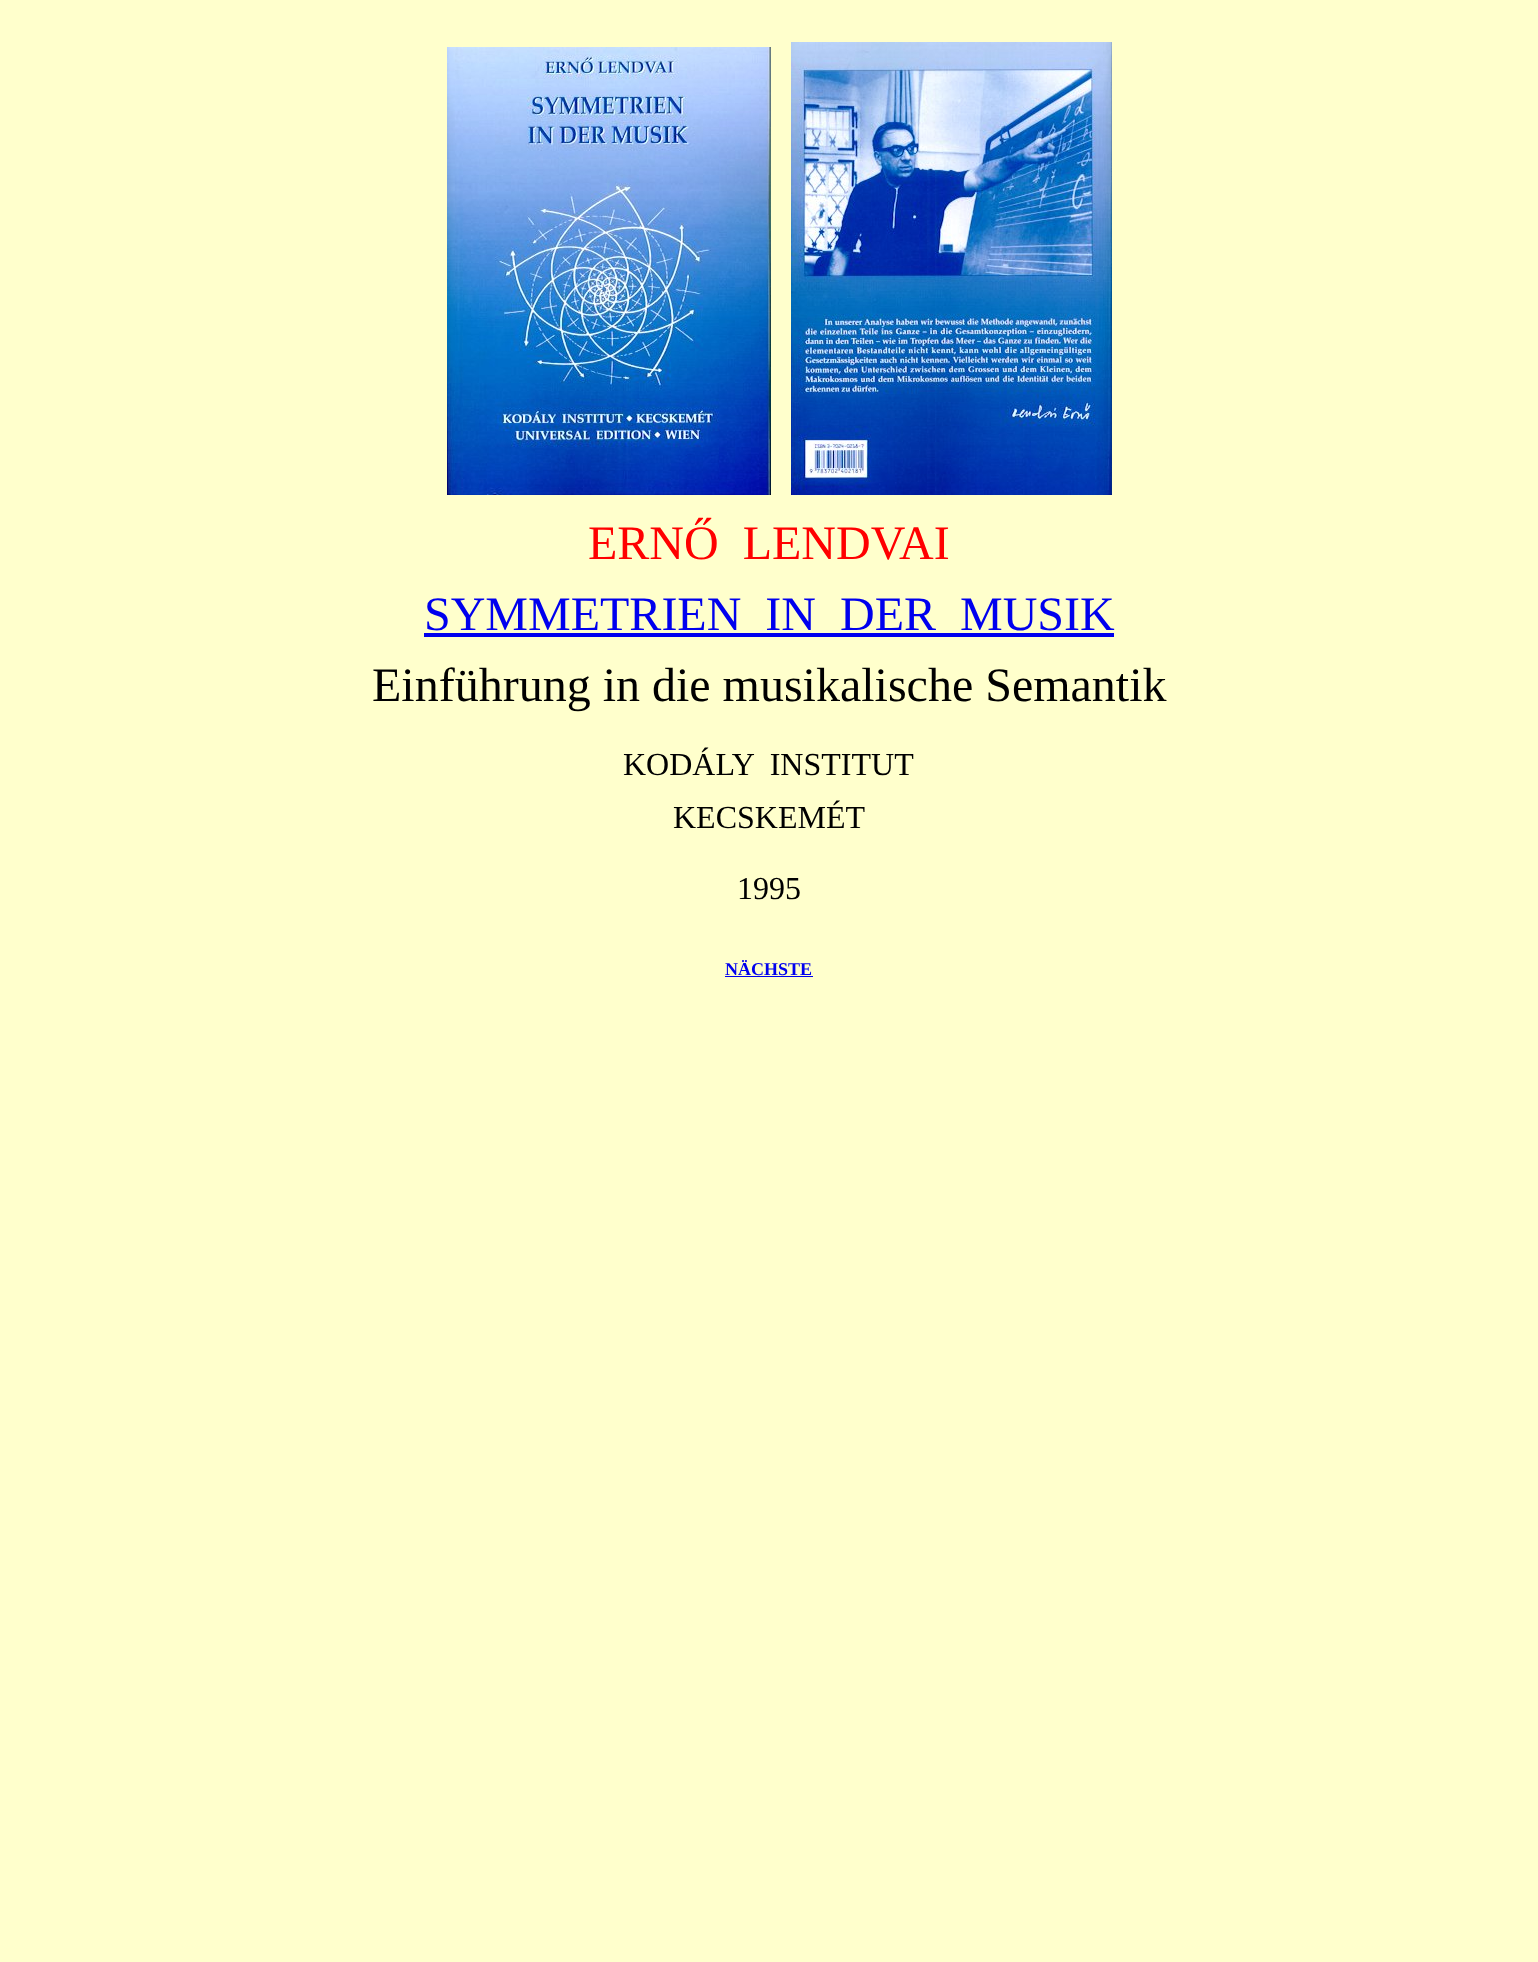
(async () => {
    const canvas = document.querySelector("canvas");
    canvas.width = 1538;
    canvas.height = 1962;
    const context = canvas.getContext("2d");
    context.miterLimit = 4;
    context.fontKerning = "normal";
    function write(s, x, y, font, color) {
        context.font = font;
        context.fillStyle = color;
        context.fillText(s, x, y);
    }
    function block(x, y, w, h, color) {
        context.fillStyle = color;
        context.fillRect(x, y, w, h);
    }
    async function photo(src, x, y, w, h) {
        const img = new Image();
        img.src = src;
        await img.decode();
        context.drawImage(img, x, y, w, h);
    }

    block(0, 0, 1538, 1962, "rgb(255, 255, 204)");
    await photo("media/1.png", 447, 47, 324, 448);
    await photo("media/2.png", 791, 42, 321, 453);
    write("ERNŐ  LENDVAI", 588, 559, "48px Liberation Serif", "rgb(255, 0, 0)");
    write("SYMMETRIEN  IN  DER  MUSIK", 424, 630, "48px Liberation Serif", "rgb(0, 0, 238)");
    block(424, 633, 690, 4, "rgb(0, 0, 238)");
    write("Einführung in die musikalische Semantik", 372, 701, "48px Liberation Serif", "rgb(0, 0, 0)");
    write("KODÁLY  INSTITUT", 623, 775, "32px Liberation Serif", "rgb(0, 0, 0)");
    write("KECSKEMÉT", 673, 828, "32px Liberation Serif", "rgb(0, 0, 0)");
    write("1995", 737, 899, "32px Liberation Serif", "rgb(0, 0, 0)");
    write("NÄCHSTE", 725, 975, "bold 18px Liberation Serif", "rgb(0, 0, 238)");
    block(725, 976, 88, 1, "rgb(0, 0, 238)");
})();
